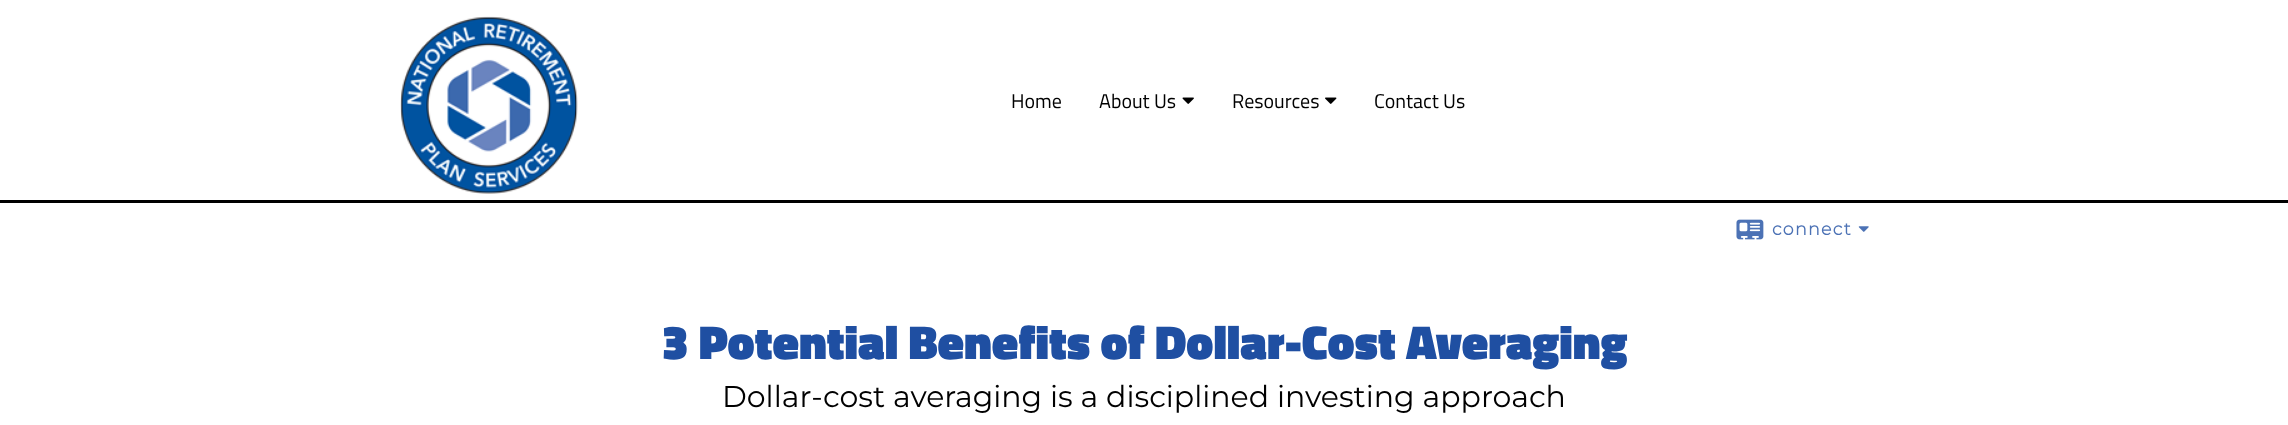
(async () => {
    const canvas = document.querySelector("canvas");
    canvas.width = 2288;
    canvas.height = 425;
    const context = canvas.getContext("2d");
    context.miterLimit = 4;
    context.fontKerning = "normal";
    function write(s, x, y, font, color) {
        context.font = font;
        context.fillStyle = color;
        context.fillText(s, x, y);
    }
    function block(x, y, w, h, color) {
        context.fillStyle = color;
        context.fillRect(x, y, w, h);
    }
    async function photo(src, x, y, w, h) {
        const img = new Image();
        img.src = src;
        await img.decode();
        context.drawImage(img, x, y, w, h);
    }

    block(0, 0, 2288, 425, "rgb(255, 255, 255)");
    await photo("media/1.png", 400, 16, 178, 178);
    write("Home", 1011, 108, "20px Titillium Web", "rgb(0, 0, 0)");
    write("About Us", 1099, 108, "20px Titillium Web", "rgb(0, 0, 0)");
    await photo("media/2.png", 1182, 97, 12, 7);
    write("Resources", 1232, 108, "20px Titillium Web", "rgb(0, 0, 0)");
    await photo("media/3.png", 1325, 97, 12, 7);
    write("Contact Us", 1374, 108, "20px Titillium Web", "rgb(0, 0, 0)");
    block(0, 200, 2288, 3, "rgb(0, 0, 0)");
    await photo("media/4.png", 1736, 219, 28, 21);
    context.letterSpacing = "1.25px";
    write("connect", 1772, 235, "bold 17.5px Montserrat", "rgb(76, 114, 181)");
    await photo("media/5.png", 1858, 226, 11, 6);
    context.letterSpacing = "0px";
    write("3 Potential Benefits of Dollar-Cost Averaging", 662, 359, "900 48px Titillium Web", "rgb(31, 79, 162)");
    write("Dollar-cost averaging is a disciplined investing approach", 722, 407, "30px Montserrat", "rgb(0, 0, 0)");
})();
